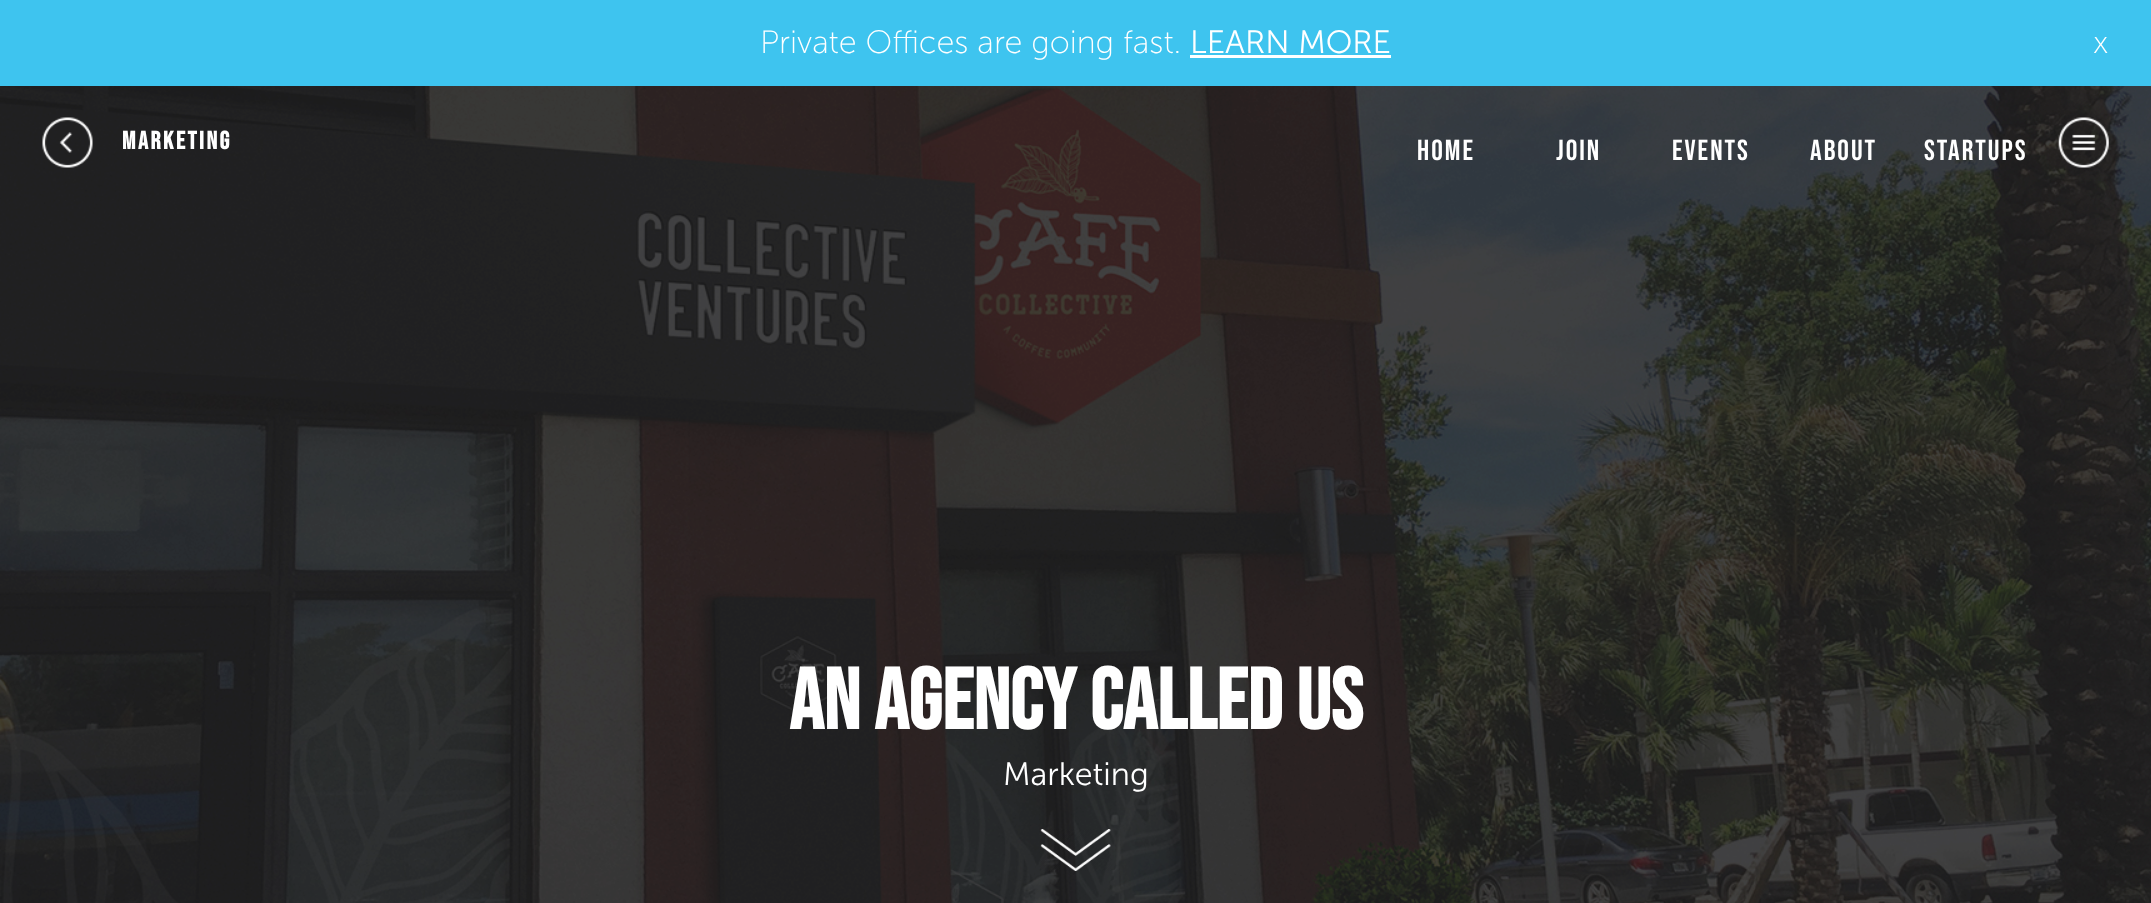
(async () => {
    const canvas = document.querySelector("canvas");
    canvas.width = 2151;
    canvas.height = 903;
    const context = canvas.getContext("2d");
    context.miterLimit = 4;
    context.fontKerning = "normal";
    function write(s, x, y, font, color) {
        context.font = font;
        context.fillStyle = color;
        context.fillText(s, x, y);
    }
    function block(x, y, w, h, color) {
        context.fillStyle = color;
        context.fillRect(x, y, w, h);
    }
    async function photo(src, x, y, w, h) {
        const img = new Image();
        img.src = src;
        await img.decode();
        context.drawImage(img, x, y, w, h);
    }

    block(0, 0, 2151, 903, "rgb(255, 255, 255)");
    block(0, 0, 2151, 86, "rgb(62, 196, 239)");
    write("Private Offices are going fast.", 760, 53, "200 32.25px Museo Sans", "rgb(255, 255, 255)");
    write("LEARN MORE", 1190, 53, "300 32.25px Museo Sans", "rgb(255, 255, 255)");
    block(1190, 55, 201, 3, "rgb(255, 255, 255)");
    write("x", 2093, 53, "200 32.25px Museo Sans", "rgb(255, 255, 255)");
    await photo("media/1.png", 0, 86, 2151, 817);
    await photo("media/2.png", 42, 117, 51, 51);
    context.letterSpacing = "2.5px";
    write("MARKETING", 122, 149, "bold 25px Bebas Neue", "rgb(255, 255, 255)");
    context.letterSpacing = "2px";
    write("HOME", 1417, 160, "29px Bebas Neue", "rgb(255, 255, 255)");
    write("JOIN", 1556, 160, "29px Bebas Neue", "rgb(255, 255, 255)");
    write("EVENTS", 1672, 160, "29px Bebas Neue", "rgb(255, 255, 255)");
    write("ABOUT", 1810, 160, "29px Bebas Neue", "rgb(255, 255, 255)");
    write("STARTUPS", 1924, 160, "29px Bebas Neue", "rgb(255, 255, 255)");
    await photo("media/3.png", 2058, 117, 51, 51);
    context.letterSpacing = "0px";
    write("An Agency Called Us", 789, 729, "bold 86px Bebas Neue", "rgb(255, 255, 255)");
    write("Marketing", 1003, 785, "300 32.25px Museo Sans", "rgb(255, 255, 255)");
    await photo("media/4.png", 1040, 829, 71, 42);
})();
